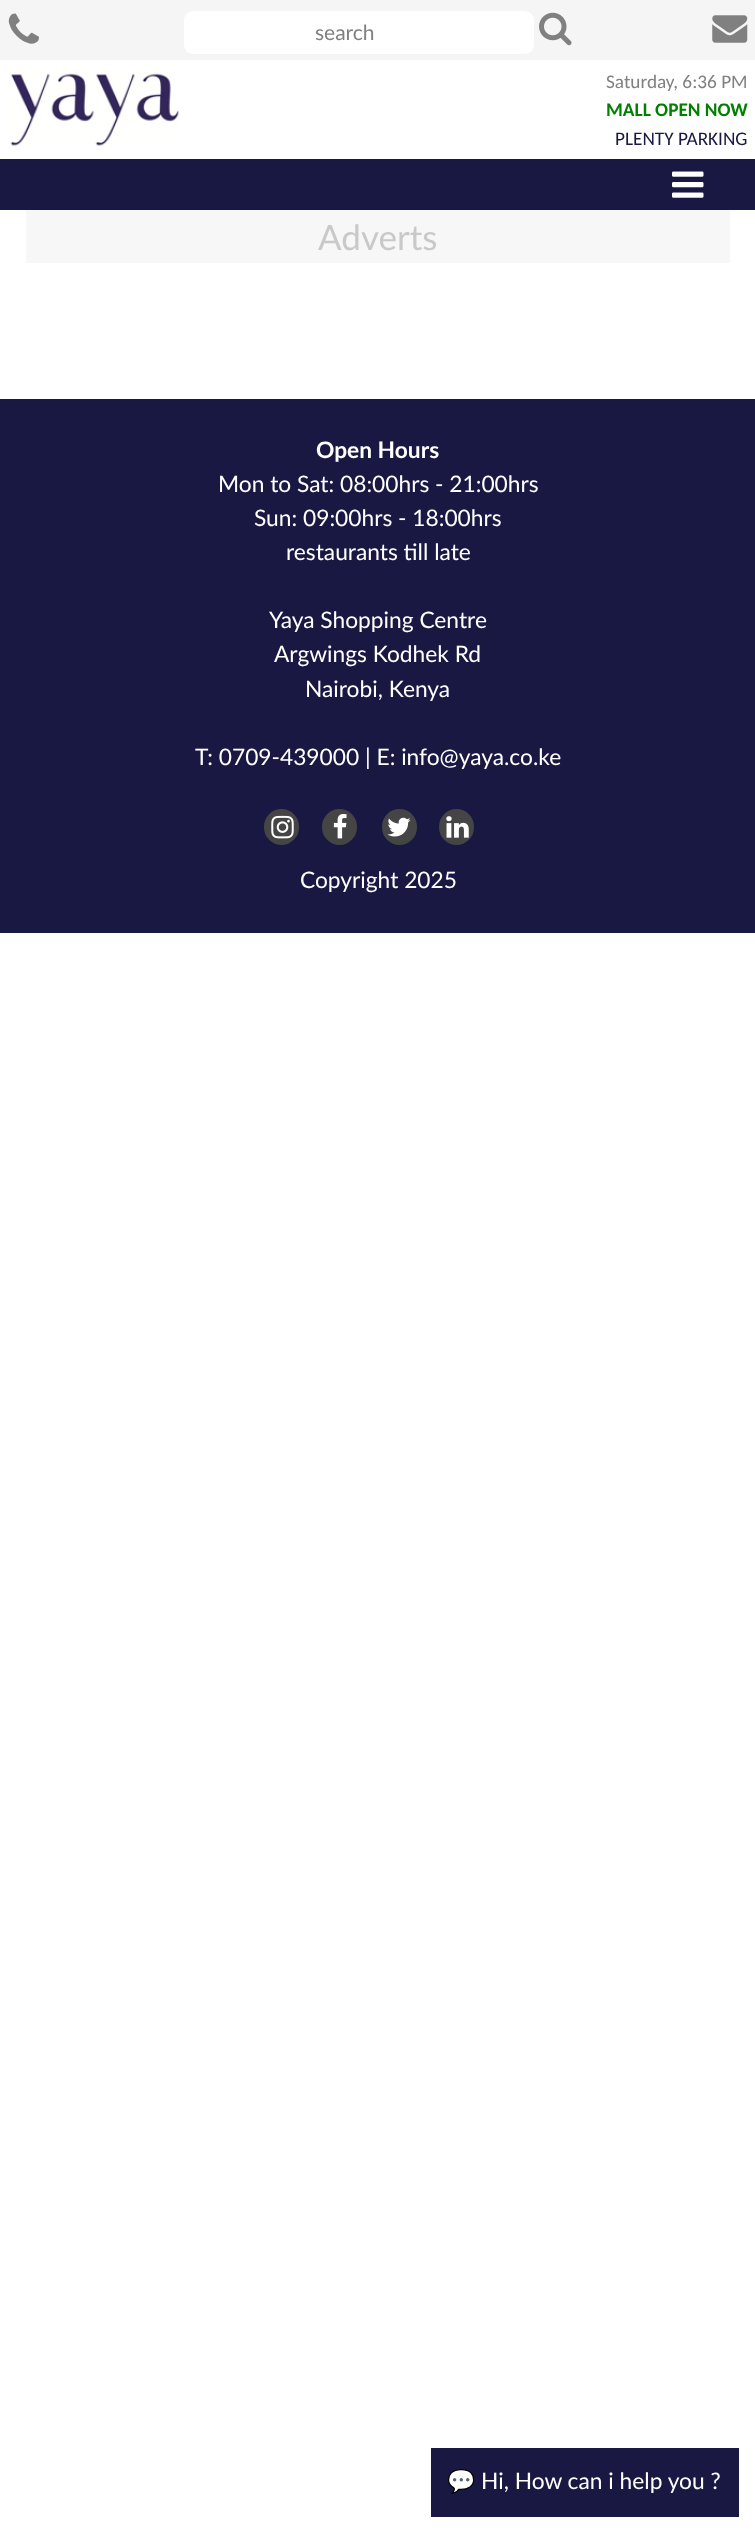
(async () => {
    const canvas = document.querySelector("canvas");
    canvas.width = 755;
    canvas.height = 2534;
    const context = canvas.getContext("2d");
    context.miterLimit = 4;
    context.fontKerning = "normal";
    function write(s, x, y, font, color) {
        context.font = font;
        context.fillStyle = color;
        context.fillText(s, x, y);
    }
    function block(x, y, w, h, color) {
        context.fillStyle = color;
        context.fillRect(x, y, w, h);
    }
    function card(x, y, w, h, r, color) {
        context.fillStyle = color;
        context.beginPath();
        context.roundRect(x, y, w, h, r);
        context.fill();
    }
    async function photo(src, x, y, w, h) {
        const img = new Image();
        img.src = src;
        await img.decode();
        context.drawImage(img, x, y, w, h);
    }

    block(0, 0, 755, 2534, "rgb(255, 255, 255)");
    block(0, 0, 755, 60, "rgb(245, 245, 245)");
    await photo("media/1.png", 8, 13, 31, 31);
    card(184, 11, 350, 43, 9, "rgb(255, 255, 255)");
    write("search", 315, 40, "21px Lato", "rgb(128, 128, 128)");
    await photo("media/2.png", 539, 12, 33, 34);
    await photo("media/3.png", 712, 15, 36, 28);
    await photo("media/4.png", 9, 68, 170, 78);
    write("Saturday, 6:36 PM", 606, 88, "19.25px Carlito", "rgb(128, 128, 128)");
    write("MALL OPEN NOW", 606, 116, "bold 19.25px Carlito", "rgb(0, 128, 0)");
    write("PLENTY PARKING", 615, 145, "19.25px Carlito", "rgb(24, 24, 66)");
    block(0, 159, 755, 51, "rgb(24, 24, 66)");
    await photo("media/5.png", 672, 171, 32, 27);
    block(26, 210, 704, 53, "rgb(247, 247, 247)");
    write("Adverts", 318, 250, "35px Lato", "rgb(201, 201, 201)");
    block(0, 399, 755, 534, "rgb(24, 24, 66)");
    write("Open Hours", 316, 458, "bold 22.75px Lato", "rgb(255, 255, 255)");
    write("Mon to Sat: 08:00hrs - 21:00hrs", 218, 492, "22.75px Lato", "rgb(255, 255, 255)");
    write("Sun: 09:00hrs - 18:00hrs", 254, 526, "22.75px Lato", "rgb(255, 255, 255)");
    write("restaurants till late", 286, 560, "22.75px Lato", "rgb(255, 255, 255)");
    write("Yaya Shopping Centre", 269, 628, "22.75px Lato", "rgb(255, 255, 255)");
    write("Argwings Kodhek Rd", 274, 662, "22.75px Lato", "rgb(255, 255, 255)");
    write("Nairobi, Kenya", 305, 697, "22.75px Lato", "rgb(255, 255, 255)");
    write("T: 0709-439000 | E: info@yaya.co.ke", 195, 765, "22.75px Lato", "rgb(255, 255, 255)");
    card(264, 809, 35, 36, 17.5, "rgb(69, 69, 69)");
    await photo("media/6.png", 271, 815, 23, 24);
    card(322, 809, 35, 36, 17.5, "rgb(69, 69, 69)");
    await photo("media/7.png", 333, 814, 14, 25);
    card(382, 809, 35, 36, 17.5, "rgb(69, 69, 69)");
    await photo("media/8.png", 387, 817, 24, 20);
    card(439, 809, 35, 36, 17.5, "rgb(69, 69, 69)");
    await photo("media/9.png", 446, 816, 23, 22);
    write("Copyright 2025", 300, 888, "22.75px Lato", "rgb(255, 255, 255)");
    block(431, 2448, 308, 69, "rgb(24, 24, 66)");
    write("💬", 447, 2489, "22.75px Noto Color Emoji", "rgb(255, 255, 255)");
    write("Hi, How can i help you ?", 481, 2489, "22.75px Lato", "rgb(255, 255, 255)");
})();
